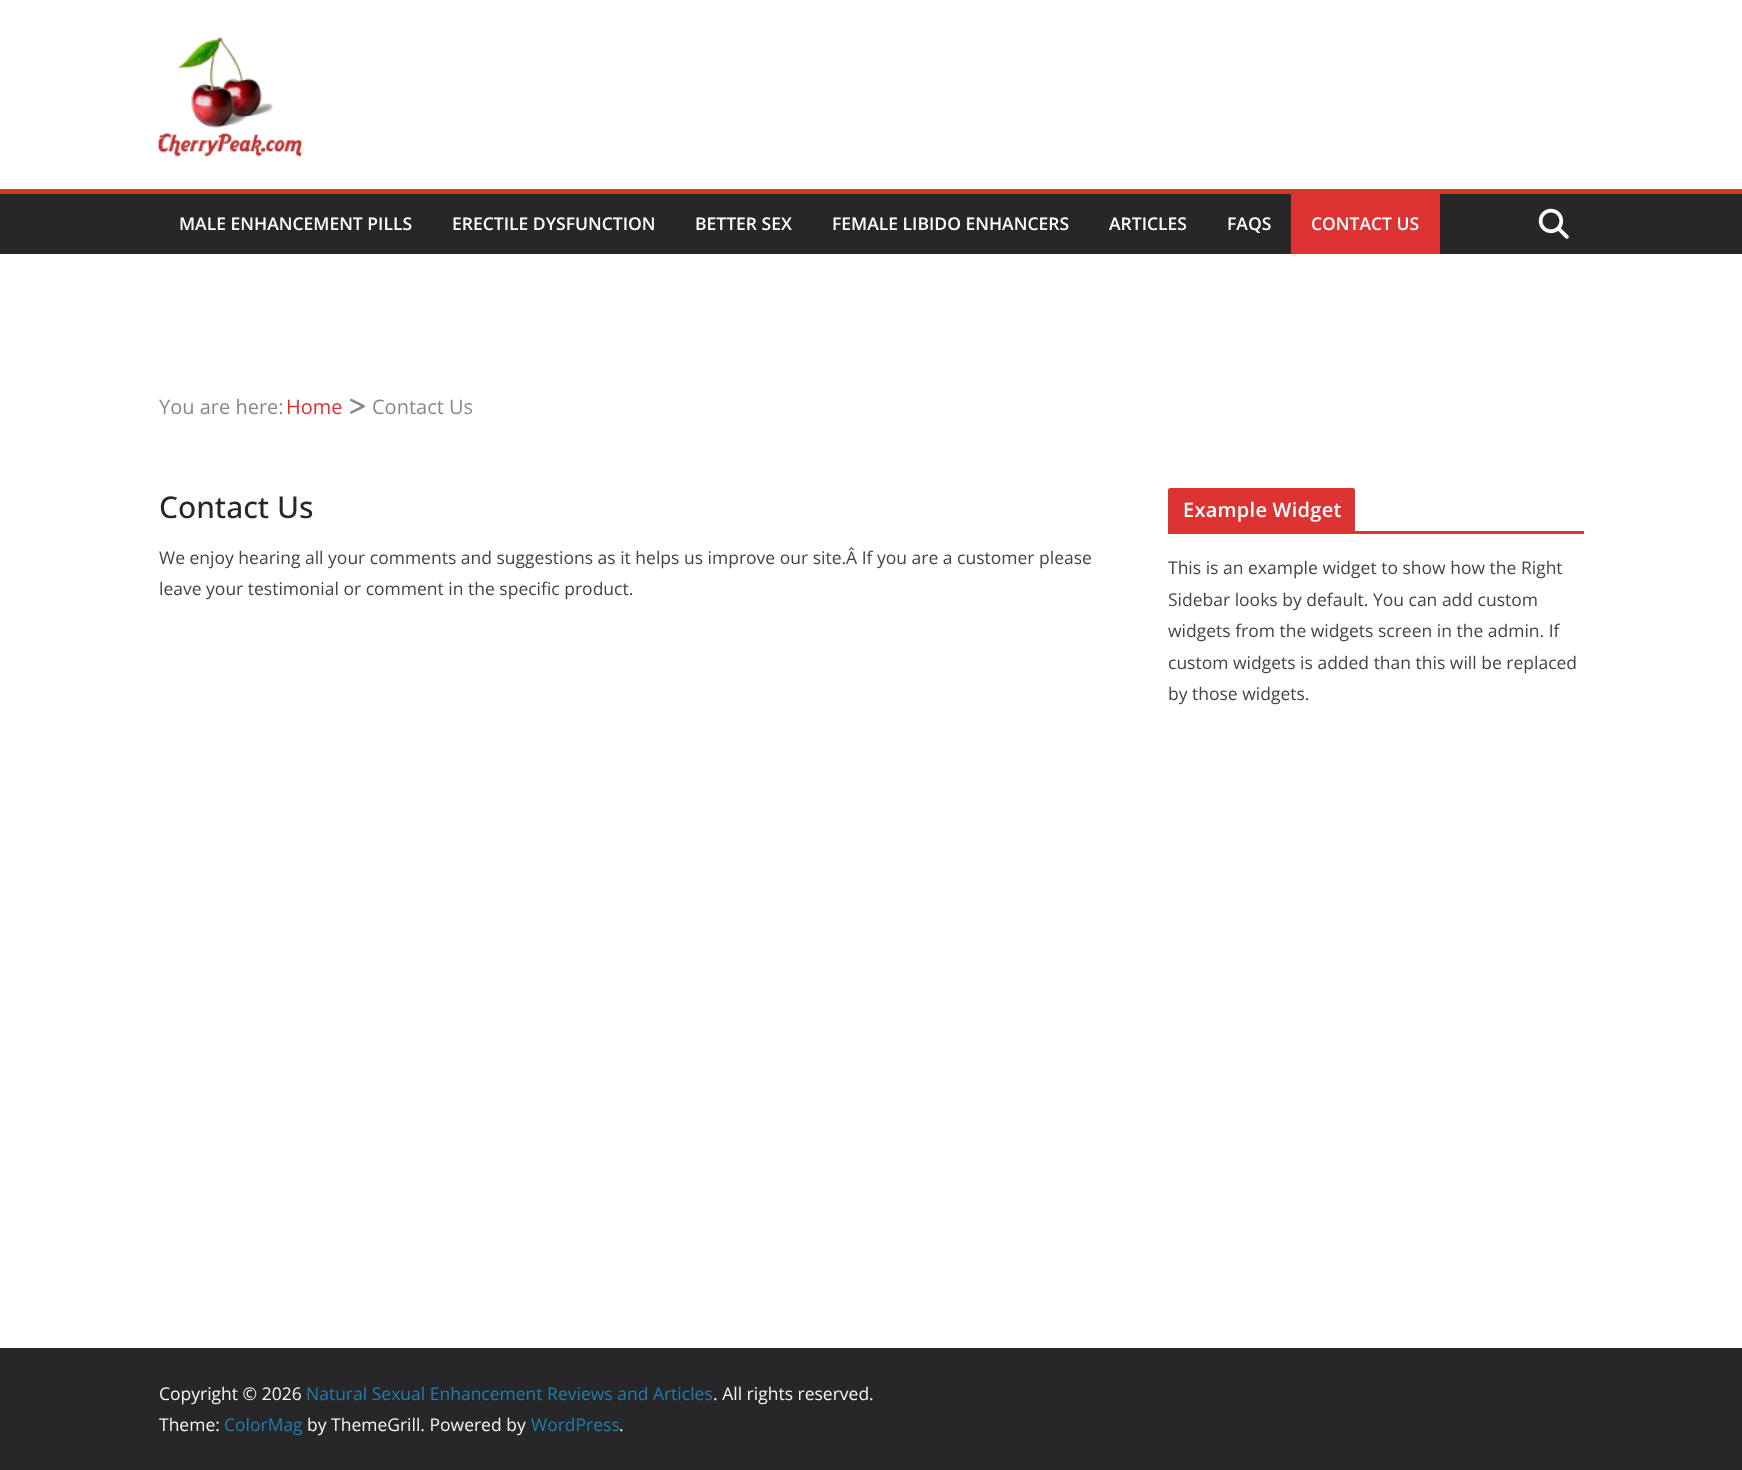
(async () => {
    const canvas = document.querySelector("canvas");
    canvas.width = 1742;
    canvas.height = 1470;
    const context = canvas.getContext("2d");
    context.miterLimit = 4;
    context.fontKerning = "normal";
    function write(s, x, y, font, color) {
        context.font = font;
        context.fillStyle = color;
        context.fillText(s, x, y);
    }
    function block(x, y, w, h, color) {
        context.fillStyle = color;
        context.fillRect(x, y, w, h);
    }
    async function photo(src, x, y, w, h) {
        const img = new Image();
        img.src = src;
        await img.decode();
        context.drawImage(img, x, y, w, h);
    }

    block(0, 0, 1742, 1470, "rgb(255, 255, 255)");
    await photo("media/1.png", 158, 36, 144, 121);
    block(0, 194, 1742, 60, "rgb(39, 39, 42)");
    block(0, 189, 1742, 5, "rgb(221, 51, 51)");
    write("MALE ENHANCEMENT PILLS", 179, 230, "600 17.5px Open Sans", "rgb(255, 255, 255)");
    write("ERECTILE DYSFUNCTION", 452, 230, "600 17.5px Open Sans", "rgb(255, 255, 255)");
    write("BETTER SEX", 695, 230, "600 17.5px Open Sans", "rgb(255, 255, 255)");
    write("FEMALE LIBIDO ENHANCERS", 832, 230, "600 17.5px Open Sans", "rgb(255, 255, 255)");
    write("ARTICLES", 1109, 230, "600 17.5px Open Sans", "rgb(255, 255, 255)");
    write("FAQS", 1227, 230, "600 17.5px Open Sans", "rgb(255, 255, 255)");
    block(1291, 194, 149, 60, "rgb(221, 51, 51)");
    write("CONTACT US", 1311, 230, "600 17.5px Open Sans", "rgb(255, 255, 255)");
    await photo("media/2.png", 1538, 208, 31, 31);
    write("You are here:", 159, 414, "20px Open Sans", "rgb(136, 136, 136)");
    write("Home", 286, 414, "20px Open Sans", "rgb(221, 51, 51)");
    await photo("media/3.png", 350, 398, 15, 16);
    write("Contact Us", 372, 414, "20px Open Sans", "rgb(136, 136, 136)");
    write("Contact Us", 159, 518, "500 30px Open Sans", "rgb(39, 39, 42)");
    write("We enjoy hearing all your comments and suggestions as it helps us improve our site.Â If you are a customer please", 159, 564, "17.5px Open Sans", "rgb(68, 68, 68)");
    write("leave your testimonial or comment in the specific product.", 159, 595, "17.5px Open Sans", "rgb(68, 68, 68)");
    block(1168, 531, 416, 3, "rgb(221, 51, 51)");
    context.beginPath();
    context.roundRect(1168, 488, 187, 43, [2.5, 2.5, 0, 0]);
    context.fill();
    context.letterSpacing = "0.25px";
    write("Example Widget", 1183, 517, "600 20px Open Sans", "rgb(255, 255, 255)");
    context.letterSpacing = "0px";
    write("This is an example widget to show how the Right", 1168, 574, "17.5px Open Sans", "rgb(68, 68, 68)");
    write("Sidebar looks by default. You can add custom", 1168, 606, "17.5px Open Sans", "rgb(68, 68, 68)");
    write("widgets from the widgets screen in the admin. If", 1168, 637, "17.5px Open Sans", "rgb(68, 68, 68)");
    write("custom widgets is added than this will be replaced", 1168, 669, "17.5px Open Sans", "rgb(68, 68, 68)");
    write("by those widgets.", 1168, 700, "17.5px Open Sans", "rgb(68, 68, 68)");
    block(0, 1348, 1742, 122, "rgb(39, 39, 42)");
    write("Copyright © 2026", 159, 1400, "17.5px Open Sans", "rgb(244, 244, 245)");
    write("Natural Sexual Enhancement Reviews and Articles", 306, 1400, "17.5px Open Sans", "rgb(32, 125, 175)");
    write(". All rights reserved.", 713, 1400, "17.5px Open Sans", "rgb(244, 244, 245)");
    write("Theme:", 159, 1431, "17.5px Open Sans", "rgb(244, 244, 245)");
    write("ColorMag", 224, 1431, "17.5px Open Sans", "rgb(32, 125, 175)");
    write("by ThemeGrill. Powered by", 307, 1431, "17.5px Open Sans", "rgb(244, 244, 245)");
    write("WordPress", 531, 1431, "17.5px Open Sans", "rgb(32, 125, 175)");
    write(".", 619, 1431, "17.5px Open Sans", "rgb(244, 244, 245)");
})();
